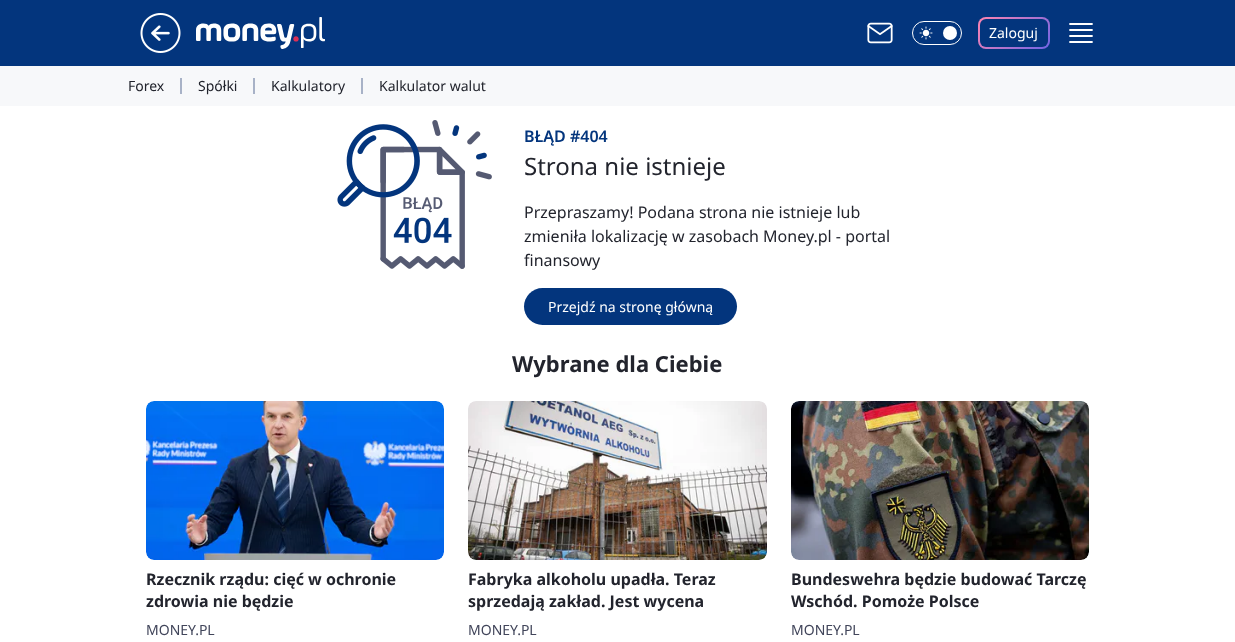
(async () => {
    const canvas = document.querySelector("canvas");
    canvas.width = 1235;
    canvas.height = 642;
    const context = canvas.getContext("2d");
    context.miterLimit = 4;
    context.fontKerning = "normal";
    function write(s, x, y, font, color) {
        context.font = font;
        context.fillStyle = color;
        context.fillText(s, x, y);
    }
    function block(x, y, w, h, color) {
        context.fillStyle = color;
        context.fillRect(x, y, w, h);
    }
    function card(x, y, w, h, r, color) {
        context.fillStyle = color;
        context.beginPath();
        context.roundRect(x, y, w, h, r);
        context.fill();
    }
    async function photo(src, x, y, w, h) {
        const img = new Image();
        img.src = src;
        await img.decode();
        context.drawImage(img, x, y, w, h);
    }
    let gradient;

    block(0, 0, 1235, 642, "rgb(255, 255, 255)");
    block(0, 0, 1235, 66, "rgb(3, 53, 125)");
    await photo("media/1.png", 140, 13, 41, 40);
    await photo("media/2.png", 196, 17, 129, 32);
    await photo("media/3.png", 867, 22, 26, 22);
    context.beginPath();
    context.roundRect(912.5, 21.5, 49, 23, 11.5);
    context.strokeStyle = "rgb(255, 255, 255)";
    context.stroke();
    await photo("media/4.png", 919, 26, 14, 14);
    context.fillStyle = "rgb(255, 255, 255)";
    context.beginPath();
    context.arc(950, 33, 7, 0, Math.PI * 2);
    context.fill();
    gradient = context.createLinearGradient(988, 7, 1040, 59);
    gradient.addColorStop(0, "rgb(255, 132, 176)");
    gradient.addColorStop(1, "rgb(110, 101, 229)");
    context.fillStyle = gradient;
    context.beginPath();
    context.roundRect(978, 17, 72, 32, 8);
    context.fill();
    card(980, 19, 68, 28, 6, "rgb(3, 53, 125)");
    write("Zaloguj", 989, 38, "14px Noto Sans", "rgb(255, 255, 255)");
    context.beginPath();
    context.moveTo(1070, 36);
    context.lineTo(1092, 36);
    context.moveTo(1070, 30);
    context.lineTo(1092, 30);
    context.moveTo(1070, 24);
    context.lineTo(1092, 24);
    context.moveTo(1070, 42);
    context.lineTo(1092, 42);
    context.lineWidth = 1.8;
    context.lineCap = "round";
    context.lineJoin = "round";
    context.stroke();
    block(0, 66, 1235, 40, "rgb(247, 248, 250)");
    write("Forex", 128, 91, "14px Noto Sans", "rgb(34, 36, 45)");
    block(180, 78, 2, 16, "rgb(168, 178, 199)");
    write("Spółki", 198, 91, "14px Noto Sans", "rgb(34, 36, 45)");
    block(253, 78, 2, 16, "rgb(168, 178, 199)");
    write("Kalkulatory", 271, 91, "14px Noto Sans", "rgb(34, 36, 45)");
    block(361, 78, 2, 16, "rgb(168, 178, 199)");
    write("Kalkulator walut", 379, 91, "14px Noto Sans", "rgb(34, 36, 45)");
    await photo("media/5.png", 337, 120, 155, 149);
    write("BŁĄD #404", 524, 142, "600 16px Noto Sans", "rgb(3, 53, 125)");
    write("Strona nie istnieje", 524, 175, "24px Noto Sans", "rgb(34, 36, 45)");
    write("Przepraszamy! Podana strona nie istnieje lub", 524, 218, "16px Noto Sans", "rgb(34, 36, 45)");
    write("zmieniła lokalizację w zasobach Money.pl - portal", 524, 242, "16px Noto Sans", "rgb(34, 36, 45)");
    write("finansowy", 524, 266, "16px Noto Sans", "rgb(34, 36, 45)");
    card(524, 288, 213, 37, 18.5, "rgb(3, 53, 125)");
    write("Przejdź na stronę główną", 548, 312, "14px Noto Sans", "rgb(255, 255, 255)");
    write("Wybrane dla Ciebie", 512, 372, "bold 22px Noto Sans", "rgb(34, 36, 45)");
    card(146, 401, 298, 159, 8, "rgb(247, 248, 250)");
    await photo("media/6.png", 146, 401, 298, 159);
    write("Rzecznik rządu: cięć w ochronie", 146, 585, "bold 16px Noto Sans", "rgb(34, 36, 45)");
    write("zdrowia nie będzie", 146, 607, "bold 16px Noto Sans", "rgb(34, 36, 45)");
    write("MONEY.PL", 146, 635, "14px Noto Sans", "rgb(65, 69, 90)");
    card(468, 401, 299, 159, 8, "rgb(247, 248, 250)");
    await photo("media/7.png", 468, 401, 299, 159);
    write("Fabryka alkoholu upadła. Teraz", 468, 585, "bold 16px Noto Sans", "rgb(34, 36, 45)");
    write("sprzedają zakład. Jest wycena", 468, 607, "bold 16px Noto Sans", "rgb(34, 36, 45)");
    write("MONEY.PL", 468, 635, "14px Noto Sans", "rgb(65, 69, 90)");
    card(791, 401, 298, 159, 8, "rgb(247, 248, 250)");
    await photo("media/8.png", 791, 401, 298, 159);
    write("Bundeswehra będzie budować Tarczę", 791, 585, "bold 16px Noto Sans", "rgb(34, 36, 45)");
    write("Wschód. Pomoże Polsce", 791, 607, "bold 16px Noto Sans", "rgb(34, 36, 45)");
    write("MONEY.PL", 791, 635, "14px Noto Sans", "rgb(65, 69, 90)");
})();
